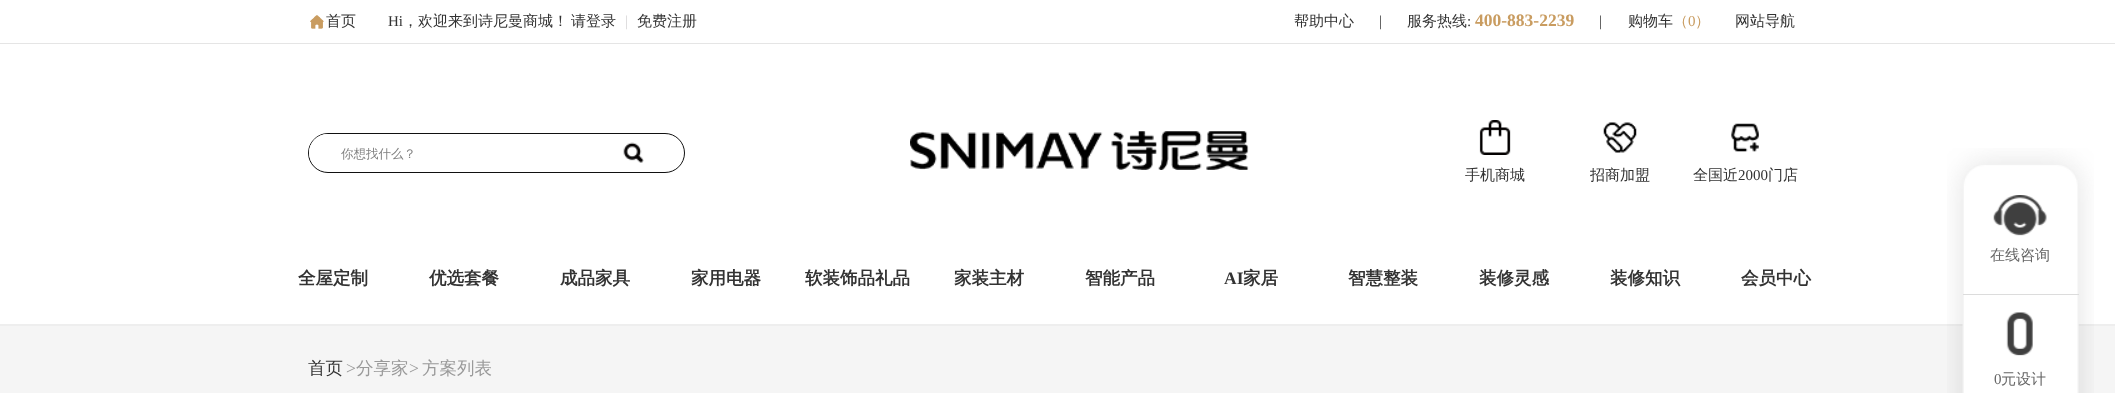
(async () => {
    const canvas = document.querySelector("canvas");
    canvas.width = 2115;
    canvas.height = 393;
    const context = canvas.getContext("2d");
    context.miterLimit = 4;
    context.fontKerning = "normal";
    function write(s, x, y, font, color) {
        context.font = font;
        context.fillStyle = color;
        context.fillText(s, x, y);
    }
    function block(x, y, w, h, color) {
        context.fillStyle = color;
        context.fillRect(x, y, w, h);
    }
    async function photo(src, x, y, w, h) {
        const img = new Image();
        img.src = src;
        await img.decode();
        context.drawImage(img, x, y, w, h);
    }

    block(0, 0, 2115, 393, "rgb(255, 255, 255)");
    block(0, 43, 2115, 1, "rgb(229, 229, 229)");
    await photo("media/1.png", 310, 15, 14, 14);
    write("首页", 326, 26, "500 15px WenQuanYi Zen Hei", "rgb(51, 51, 51)");
    write("Hi", 388, 26, "15px Liberation Serif", "rgb(51, 51, 51)");
    write("，欢迎来到诗尼曼商城！", 403, 26, "500 15px WenQuanYi Zen Hei", "rgb(51, 51, 51)");
    write("请登录", 571, 26, "500 15px WenQuanYi Zen Hei", "rgb(51, 51, 51)");
    write("|", 625, 26, "15px Liberation Serif", "rgb(214, 213, 214)");
    write("免费注册", 637, 26, "500 15px WenQuanYi Zen Hei", "rgb(51, 51, 51)");
    write("帮助中心", 1294, 26, "500 15px WenQuanYi Zen Hei", "rgb(51, 51, 51)");
    write("|", 1379, 26, "15px Liberation Serif", "rgb(51, 51, 51)");
    write("服务热线", 1407, 26, "500 15px WenQuanYi Zen Hei", "rgb(51, 51, 51)");
    write(":", 1467, 26, "15px Liberation Serif", "rgb(51, 51, 51)");
    write("400-883-2239", 1475, 26, "bold 17.5px Liberation Serif", "rgb(201, 156, 96)");
    write("|", 1599, 26, "15px Liberation Serif", "rgb(51, 51, 51)");
    write("购物车", 1628, 26, "500 15px WenQuanYi Zen Hei", "rgb(51, 51, 51)");
    write("（", 1673, 26, "500 15px WenQuanYi Zen Hei", "rgb(201, 156, 96)");
    write("0", 1688, 26, "15px Liberation Serif", "rgb(201, 156, 96)");
    write("）", 1695, 26, "500 15px WenQuanYi Zen Hei", "rgb(201, 156, 96)");
    write("网站导航", 1735, 26, "500 15px WenQuanYi Zen Hei", "rgb(51, 51, 51)");
    context.beginPath();
    context.roundRect(308.5, 133.5, 376, 39, 19.5);
    context.strokeStyle = "rgb(17, 17, 17)";
    context.stroke();
    context.fillStyle = "rgb(255, 255, 255)";
    context.beginPath();
    context.roundRect(309, 134, 300, 37, [18.5, 0, 0, 18.5]);
    context.fill();
    write("你想找什么？", 341, 158, "500 12.5px WenQuanYi Zen Hei", "rgb(128, 128, 128)");
    await photo("media/2.png", 623, 142, 21, 21);
    await photo("media/3.png", 910, 131, 339, 39);
    await photo("media/4.png", 1479, 120, 32, 35);
    write("手机商城", 1465, 180, "500 15px WenQuanYi Zen Hei", "rgb(51, 51, 51)");
    await photo("media/5.png", 1603, 122, 34, 31);
    write("招商加盟", 1590, 180, "500 15px WenQuanYi Zen Hei", "rgb(51, 51, 51)");
    await photo("media/6.png", 1731, 123, 28, 29);
    write("全国近", 1693, 180, "500 15px WenQuanYi Zen Hei", "rgb(51, 51, 51)");
    write("2000", 1738, 180, "15px Liberation Serif", "rgb(51, 51, 51)");
    write("门店", 1768, 180, "500 15px WenQuanYi Zen Hei", "rgb(51, 51, 51)");
    block(0, 324, 2115, 2, "rgb(238, 238, 238)");
    write("全屋定制", 298, 284, "bold 17.5px WenQuanYi Zen Hei", "rgb(51, 51, 51)");
    write("优选套餐", 429, 284, "bold 17.5px WenQuanYi Zen Hei", "rgb(51, 51, 51)");
    write("成品家具", 560, 284, "bold 17.5px WenQuanYi Zen Hei", "rgb(51, 51, 51)");
    write("家用电器", 691, 284, "bold 17.5px WenQuanYi Zen Hei", "rgb(51, 51, 51)");
    write("软装饰品礼品", 805, 284, "bold 17.5px WenQuanYi Zen Hei", "rgb(51, 51, 51)");
    write("家装主材", 954, 284, "bold 17.5px WenQuanYi Zen Hei", "rgb(51, 51, 51)");
    write("智能产品", 1085, 284, "bold 17.5px WenQuanYi Zen Hei", "rgb(51, 51, 51)");
    write("AI", 1224, 284, "bold 17.5px Liberation Serif", "rgb(51, 51, 51)");
    write("家居", 1243, 284, "bold 17.5px WenQuanYi Zen Hei", "rgb(51, 51, 51)");
    write("智慧整装", 1348, 284, "bold 17.5px WenQuanYi Zen Hei", "rgb(51, 51, 51)");
    write("装修灵感", 1479, 284, "bold 17.5px WenQuanYi Zen Hei", "rgb(51, 51, 51)");
    write("装修知识", 1610, 284, "bold 17.5px WenQuanYi Zen Hei", "rgb(51, 51, 51)");
    write("会员中心", 1741, 284, "bold 17.5px WenQuanYi Zen Hei", "rgb(51, 51, 51)");
    block(0, 326, 2115, 67, "rgb(245, 245, 245)");
    await photo("media/7.png", 1947, 148, 147, 245);
    block(1963, 294, 116, 1, "rgb(220, 220, 220)");
    await photo("media/8.png", 1993, 195, 54, 41);
    write("在线咨询", 1990, 260, "500 15px WenQuanYi Zen Hei", "rgb(102, 102, 102)");
    await photo("media/9.png", 2006, 312, 27, 44);
    write("0", 1994, 384, "15px Liberation Serif", "rgb(102, 102, 102)");
    write("元设计", 2001, 384, "500 15px WenQuanYi Zen Hei", "rgb(102, 102, 102)");
    write("首页", 308, 374, "500 17.5px WenQuanYi Zen Hei", "rgb(51, 51, 51)");
    write(">", 346, 374, "17.5px Liberation Serif", "rgb(153, 153, 153)");
    write("分享家", 356, 374, "500 17.5px WenQuanYi Zen Hei", "rgb(153, 153, 153)");
    write(">", 409, 374, "17.5px Liberation Serif", "rgb(153, 153, 153)");
    write("方案列表", 422, 374, "500 17.5px WenQuanYi Zen Hei", "rgb(153, 153, 153)");
})();
